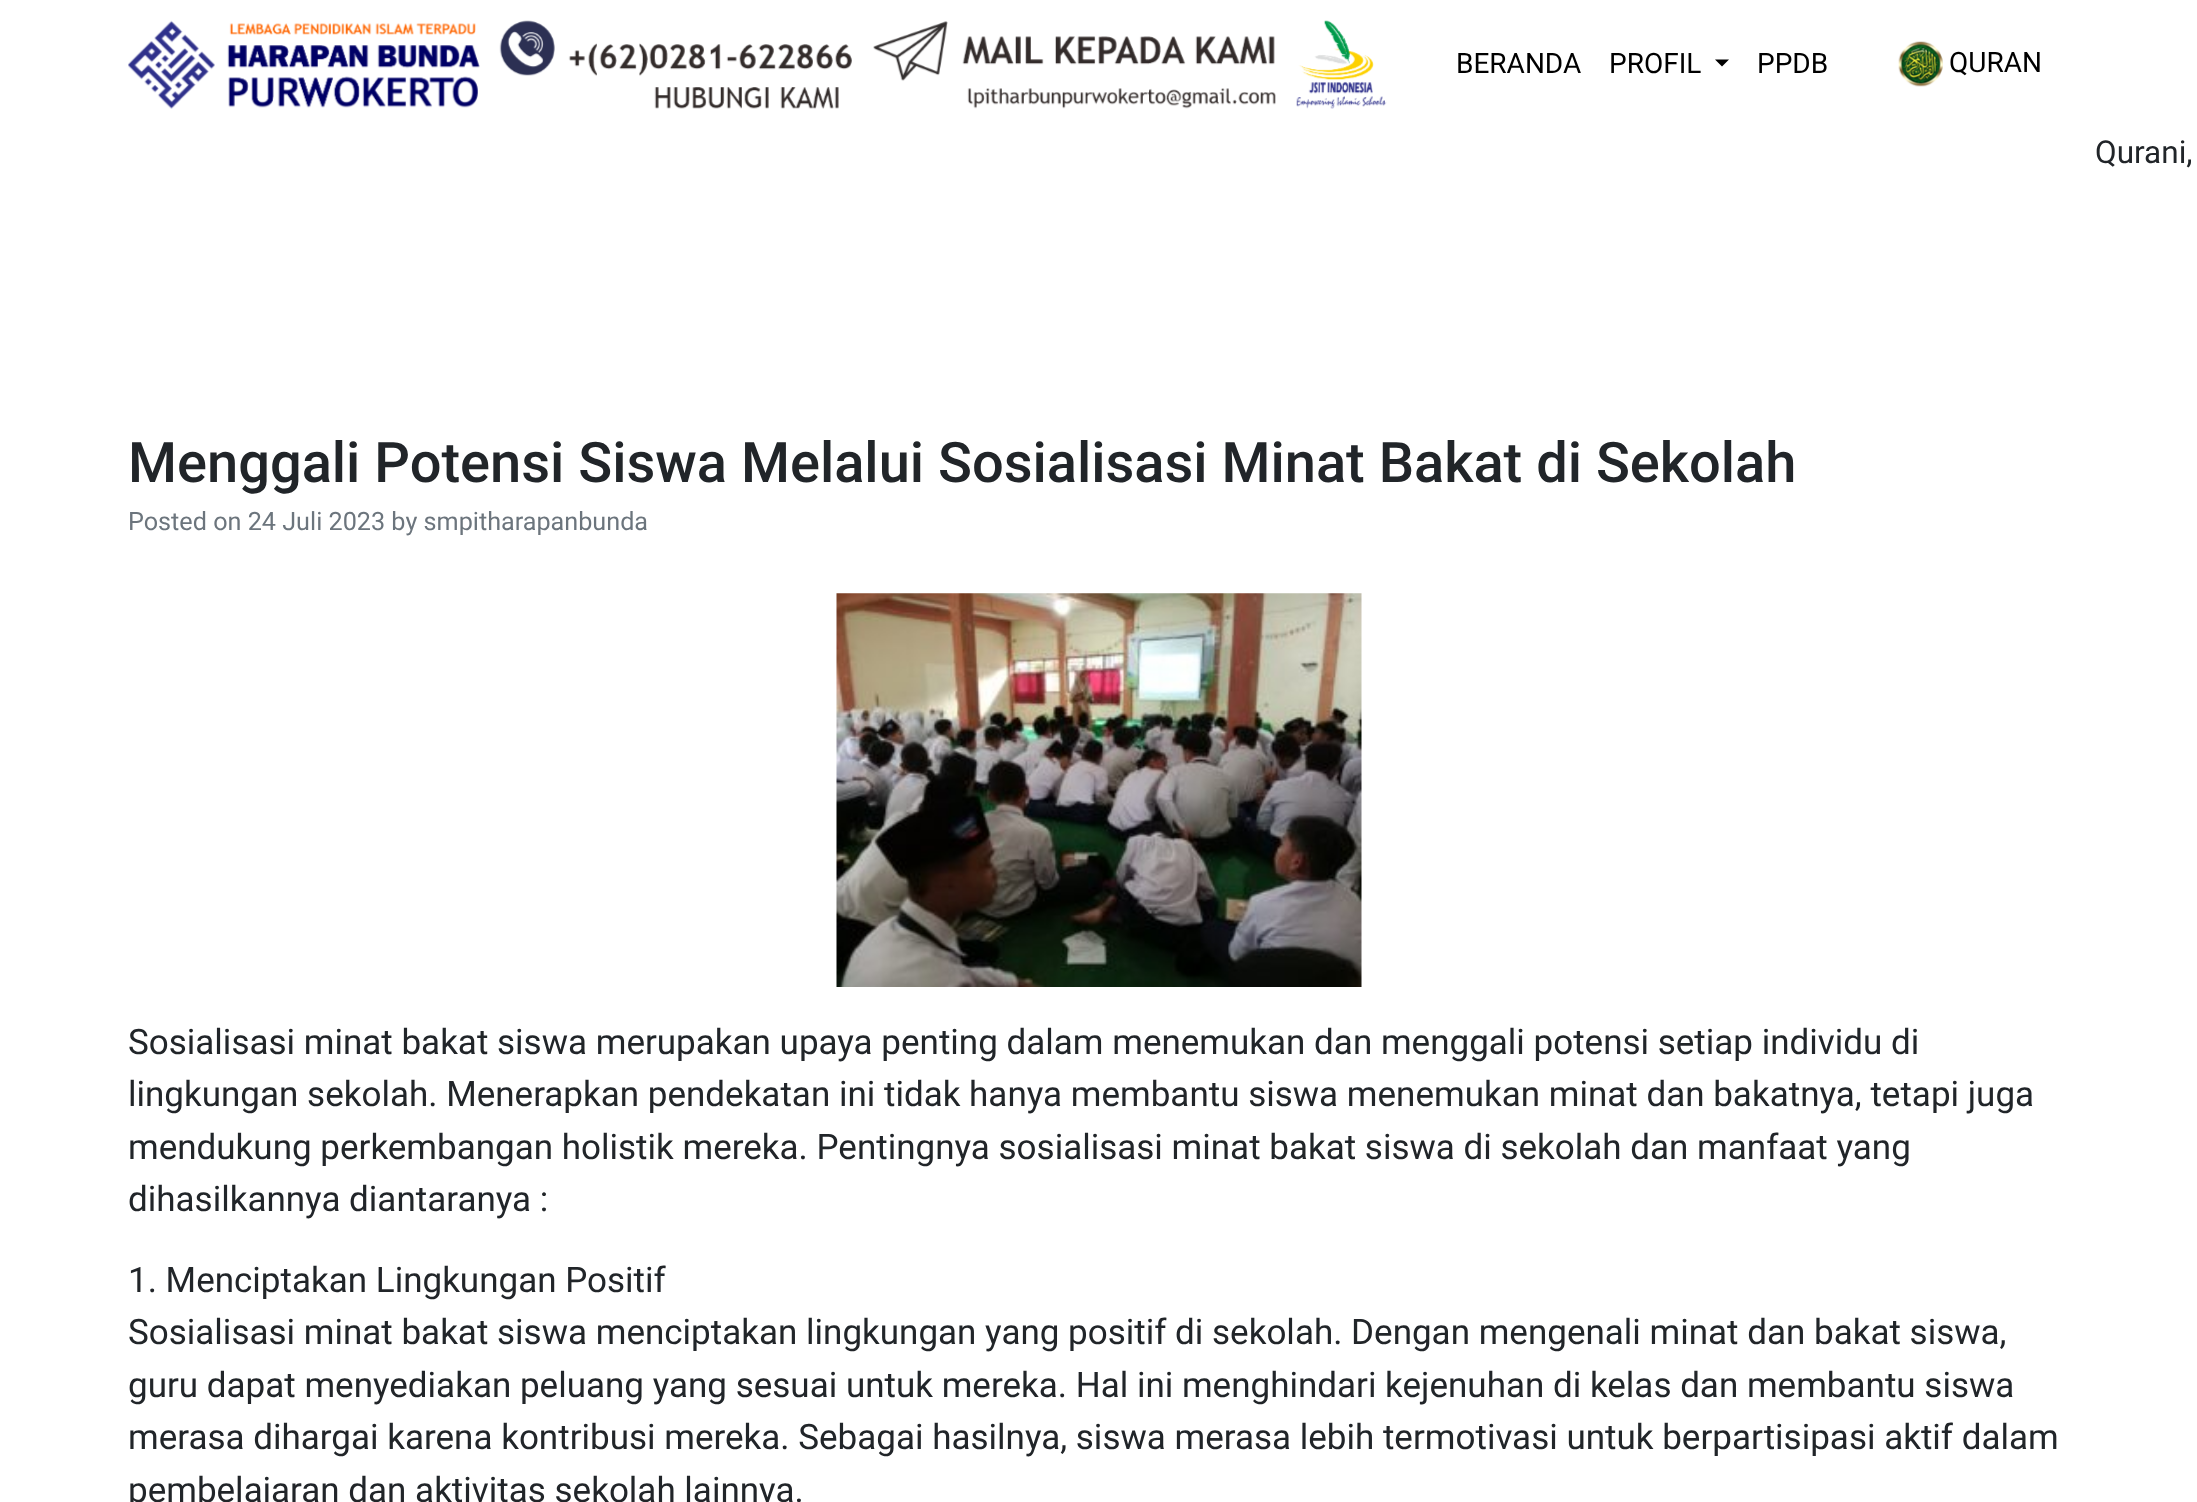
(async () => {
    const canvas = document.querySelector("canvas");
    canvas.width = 2197;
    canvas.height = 1502;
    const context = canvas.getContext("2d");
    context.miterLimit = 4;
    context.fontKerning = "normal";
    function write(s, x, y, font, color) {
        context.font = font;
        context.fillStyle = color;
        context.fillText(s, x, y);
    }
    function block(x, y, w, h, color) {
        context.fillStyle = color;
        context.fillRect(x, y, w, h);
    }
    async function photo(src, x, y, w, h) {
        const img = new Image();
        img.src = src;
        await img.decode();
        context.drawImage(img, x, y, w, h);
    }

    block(0, 0, 2197, 1502, "rgb(255, 255, 255)");
    await photo("media/1.png", 128, 20, 352, 89);
    await photo("media/2.png", 499, 20, 353, 89);
    await photo("media/3.png", 873, 21, 403, 88);
    await photo("media/4.png", 1296, 20, 91, 89);
    write("BERANDA", 1456, 73, "28px Roboto", "rgb(0, 0, 0)");
    write("PROFIL", 1609, 73, "28px Roboto", "rgb(0, 0, 0)");
    context.beginPath();
    context.moveTo(1715, 59.5);
    context.lineTo(1729, 59.5);
    context.lineTo(1722, 66.5);
    context.closePath();
    context.fill();
    write("PPDB", 1757, 73, "28px Roboto", "rgb(0, 0, 0)");
    await photo("media/5.png", 1898, 41, 45, 46);
    write("QURAN", 1949, 72, "28px Roboto", "rgb(0, 0, 0)");
    write("Qurani,", 2095, 163, "31.5px Roboto", "rgb(33, 37, 41)");
    write("Menggali Potensi Siswa Melalui Sosialisasi Minat Bakat di Sekolah", 128, 482, "500 56px Roboto", "rgb(33, 37, 41)");
    write("Posted on 24 Juli 2023 by smpitharapanbunda", 128, 530, "25.2px Roboto", "rgb(108, 117, 125)");
    await photo("media/6.png", 836, 593, 526, 394);
    write("Sosialisasi minat bakat siswa merupakan upaya penting dalam menemukan dan menggali potensi setiap individu di", 128, 1054, "35px Roboto", "rgb(33, 37, 41)");
    write("lingkungan sekolah. Menerapkan pendekatan ini tidak hanya membantu siswa menemukan minat dan bakatnya, tetapi juga", 128, 1106, "35px Roboto", "rgb(33, 37, 41)");
    write("mendukung perkembangan holistik mereka. Pentingnya sosialisasi minat bakat siswa di sekolah dan manfaat yang", 128, 1159, "35px Roboto", "rgb(33, 37, 41)");
    write("dihasilkannya diantaranya :", 128, 1211, "35px Roboto", "rgb(33, 37, 41)");
    write("1. Menciptakan Lingkungan Positif", 128, 1292, "35px Roboto", "rgb(33, 37, 41)");
    write("Sosialisasi minat bakat siswa menciptakan lingkungan yang positif di sekolah. Dengan mengenali minat dan bakat siswa,", 128, 1344, "35px Roboto", "rgb(33, 37, 41)");
    write("guru dapat menyediakan peluang yang sesuai untuk mereka. Hal ini menghindari kejenuhan di kelas dan membantu siswa", 128, 1397, "35px Roboto", "rgb(33, 37, 41)");
    write("merasa dihargai karena kontribusi mereka. Sebagai hasilnya, siswa merasa lebih termotivasi untuk berpartisipasi aktif dalam", 128, 1449, "35px Roboto", "rgb(33, 37, 41)");
    write("pembelajaran dan aktivitas sekolah lainnya.", 128, 1502, "35px Roboto", "rgb(33, 37, 41)");
})();
